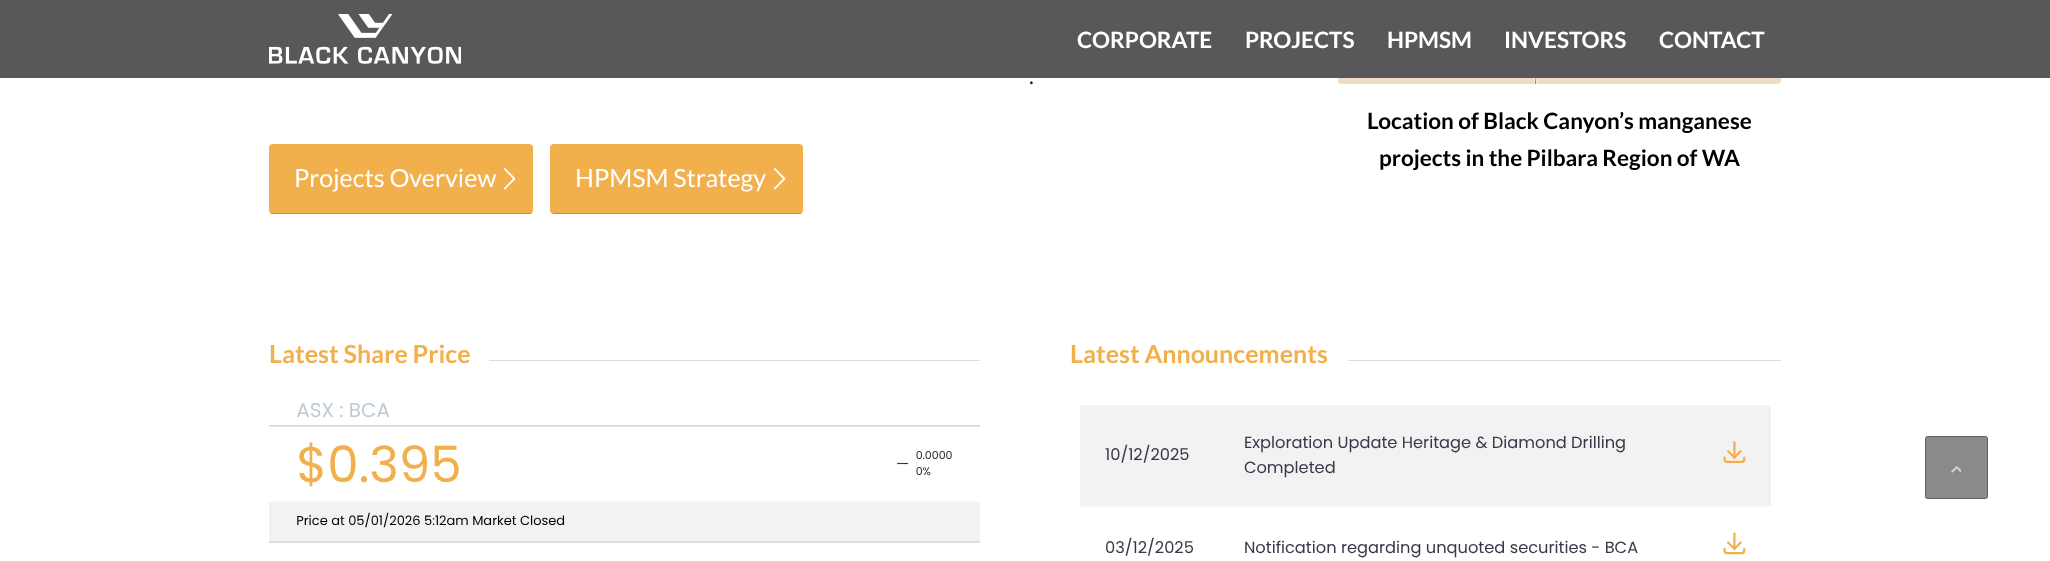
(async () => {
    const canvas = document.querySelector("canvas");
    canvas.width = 2050;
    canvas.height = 561;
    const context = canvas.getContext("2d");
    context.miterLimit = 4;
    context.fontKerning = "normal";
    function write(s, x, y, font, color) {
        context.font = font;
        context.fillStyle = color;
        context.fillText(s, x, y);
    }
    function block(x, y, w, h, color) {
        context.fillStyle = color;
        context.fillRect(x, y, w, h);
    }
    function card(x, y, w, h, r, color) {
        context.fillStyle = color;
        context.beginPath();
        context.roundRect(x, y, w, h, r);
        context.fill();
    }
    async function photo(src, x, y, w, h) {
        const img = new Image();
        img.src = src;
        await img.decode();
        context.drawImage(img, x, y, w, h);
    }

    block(0, 0, 2050, 561, "rgb(255, 255, 255)");
    block(0, 0, 2050, 78, "rgb(88, 88, 90)");
    await photo("media/1.png", 269, 14, 192, 50);
    write("CORPORATE", 1077, 48, "bold 22.5px Lato", "rgb(255, 255, 255)");
    write("PROJECTS", 1245, 48, "bold 22.5px Lato", "rgb(255, 255, 255)");
    write("HPMSM", 1387, 48, "bold 22.5px Lato", "rgb(255, 255, 255)");
    write("INVESTORS", 1504, 48, "bold 22.5px Lato", "rgb(255, 255, 255)");
    write("CONTACT", 1659, 48, "bold 22.5px Lato", "rgb(255, 255, 255)");
    write(".", 1029, 84, "22.5px Lato", "rgb(35, 31, 32)");
    card(269, 144, 264, 70, 4, "rgb(242, 176, 77)");
    block(271, 213, 260, 1, "rgb(208, 144, 43)");
    write("Projects Overview", 294, 187, "25px Lato", "rgb(255, 255, 255)");
    await photo("media/2.png", 503, 168, 13, 22);
    card(550, 144, 253, 70, 4, "rgb(242, 176, 77)");
    block(553, 213, 248, 1, "rgb(208, 144, 43)");
    write("HPMSM Strategy", 575, 187, "25px Lato", "rgb(255, 255, 255)");
    await photo("media/2.png", 773, 168, 13, 22);
    await photo("media/3.png", 1337, 78, 444, 6);
    write("Location of Black Canyon’s manganese", 1367, 129, "bold 22.5px Lato", "rgb(0, 0, 0)");
    write("projects in the Pilbara Region of WA", 1379, 166, "bold 22.5px Lato", "rgb(0, 0, 0)");
    write("Latest Share Price", 269, 363, "bold 25px Lato", "rgb(242, 176, 77)");
    block(489, 360, 491, 1, "rgb(222, 221, 222)");
    await photo("media/4.png", 269, 403, 711, 140);
    write("Latest Announcements", 1070, 363, "bold 25px Lato", "rgb(242, 176, 77)");
    block(1348, 360, 433, 1, "rgb(222, 221, 222)");
    await photo("media/5.png", 1080, 405, 691, 153);
    context.fillStyle = "rgb(138, 138, 140)";
    context.beginPath();
    context.roundRect(1925.5, 436.5, 62, 62, 2);
    context.fill();
    context.strokeStyle = "rgb(94, 94, 94)";
    context.stroke();
    await photo("media/6.png", 1951, 466, 10, 7);
})();
